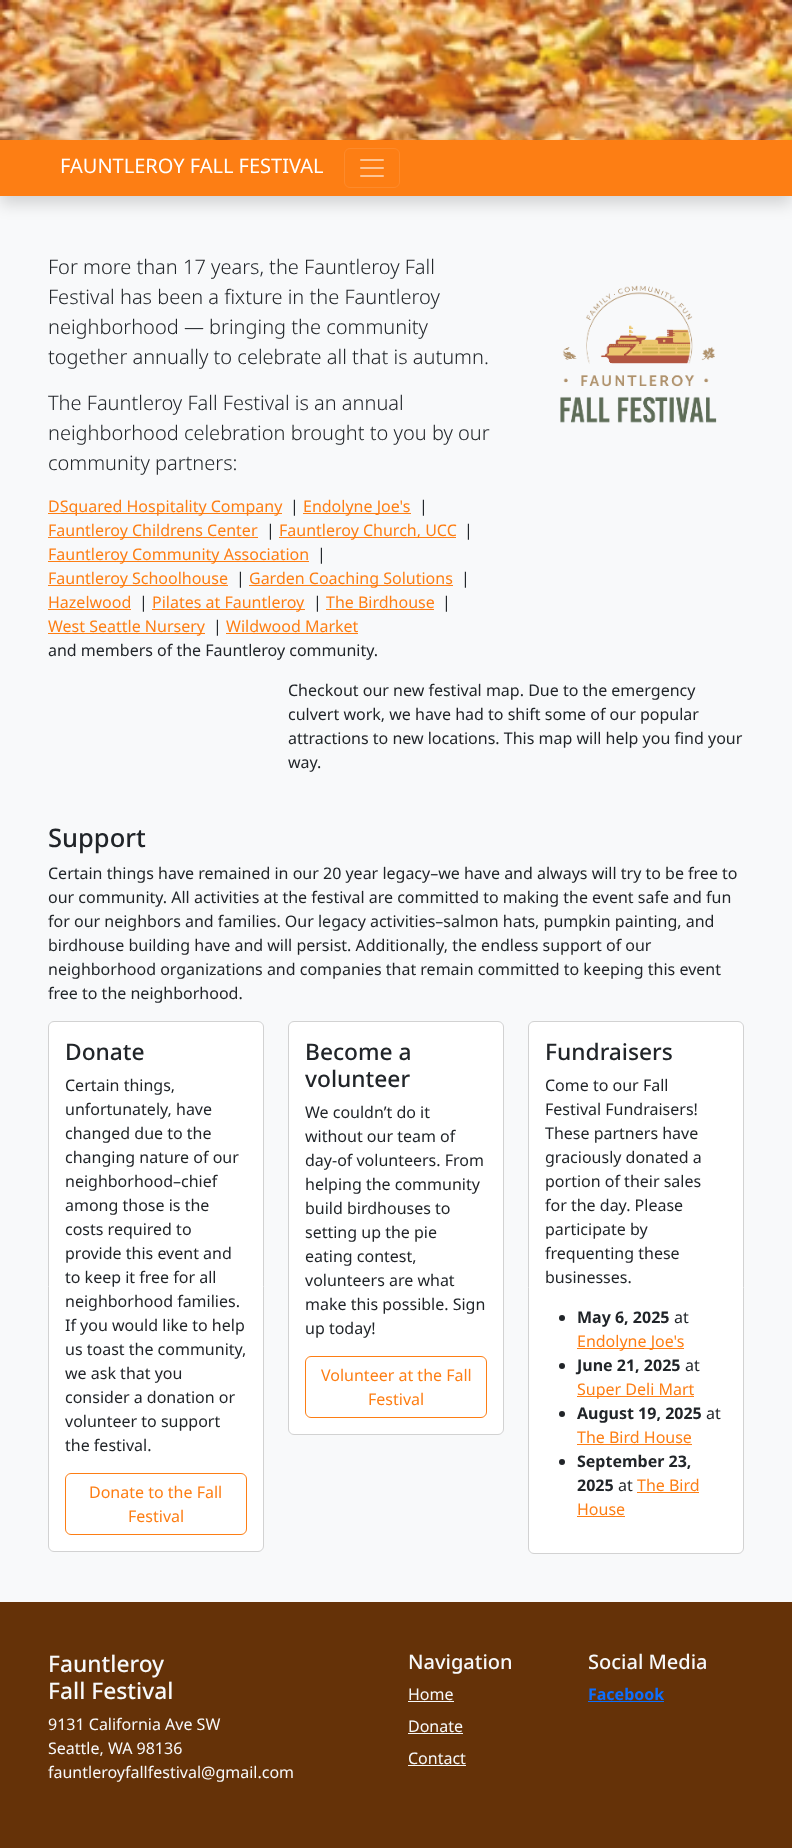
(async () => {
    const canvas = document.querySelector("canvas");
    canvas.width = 792;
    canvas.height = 1848;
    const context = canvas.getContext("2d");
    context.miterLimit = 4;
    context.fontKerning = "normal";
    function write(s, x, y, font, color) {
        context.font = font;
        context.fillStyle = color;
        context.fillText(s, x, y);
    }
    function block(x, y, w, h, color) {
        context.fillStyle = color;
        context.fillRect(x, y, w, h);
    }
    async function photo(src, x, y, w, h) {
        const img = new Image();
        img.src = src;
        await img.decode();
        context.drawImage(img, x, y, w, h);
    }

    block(0, 0, 792, 1848, "rgb(255, 255, 255)");
    await photo("media/1.png", 0, 0, 792, 140);
    block(0, 196, 792, 1406, "rgb(248, 249, 250)");
    context.fillStyle = "rgba(0, 0, 0, 0.15)";
    context.filter = "blur(8px)";
    context.beginPath();
    context.rect(0, 148, 792, 56);
    context.fill();
    context.filter = "none";
    block(0, 140, 792, 56, "rgb(253, 126, 20)");
    write("FAUNTLEROY FALL FESTIVAL", 60, 173, "20px Noto Sans", "rgb(255, 255, 255)");
    context.beginPath();
    context.roundRect(344.5, 148.5, 55, 39, 5.5);
    context.strokeStyle = "rgb(253, 139, 44)";
    context.stroke();
    await photo("media/2.png", 360, 159, 24, 18);
    write("For more than 17 years, the Fauntleroy Fall", 48, 274, "300 20px Noto Sans", "rgb(33, 37, 41)");
    write("Festival has been a fixture in the Fauntleroy", 48, 304, "300 20px Noto Sans", "rgb(33, 37, 41)");
    write("neighborhood — bringing the community", 48, 334, "300 20px Noto Sans", "rgb(33, 37, 41)");
    write("together annually to celebrate all that is autumn.", 48, 364, "300 20px Noto Sans", "rgb(33, 37, 41)");
    write("The Fauntleroy Fall Festival is an annual", 48, 410, "300 20px Noto Sans", "rgb(33, 37, 41)");
    write("neighborhood celebration brought to you by our", 48, 440, "300 20px Noto Sans", "rgb(33, 37, 41)");
    write("community partners:", 48, 470, "300 20px Noto Sans", "rgb(33, 37, 41)");
    block(48, 513, 234, 1, "rgb(253, 126, 20)");
    write("DSquared Hospitality Company", 48, 512, "16px Noto Sans", "rgb(253, 126, 20)");
    write("|", 290, 512, "16px Noto Sans", "rgb(33, 37, 41)");
    block(303, 513, 108, 1, "rgb(253, 126, 20)");
    write("Endolyne Joe's", 303, 512, "16px Noto Sans", "rgb(253, 126, 20)");
    write("|", 419, 512, "16px Noto Sans", "rgb(33, 37, 41)");
    block(48, 537, 210, 1, "rgb(253, 126, 20)");
    write("Fauntleroy Childrens Center", 48, 536, "16px Noto Sans", "rgb(253, 126, 20)");
    write("|", 266, 536, "16px Noto Sans", "rgb(33, 37, 41)");
    block(279, 537, 177, 1, "rgb(253, 126, 20)");
    write("Fauntleroy Church, UCC", 279, 536, "16px Noto Sans", "rgb(253, 126, 20)");
    write("|", 464, 536, "16px Noto Sans", "rgb(33, 37, 41)");
    block(48, 561, 261, 1, "rgb(253, 126, 20)");
    write("Fauntleroy Community Association", 48, 560, "16px Noto Sans", "rgb(253, 126, 20)");
    write("|", 317, 560, "16px Noto Sans", "rgb(33, 37, 41)");
    block(48, 585, 180, 1, "rgb(253, 126, 20)");
    write("Fauntleroy Schoolhouse", 48, 584, "16px Noto Sans", "rgb(253, 126, 20)");
    write("|", 236, 584, "16px Noto Sans", "rgb(33, 37, 41)");
    block(249, 585, 204, 1, "rgb(253, 126, 20)");
    write("Garden Coaching Solutions", 249, 584, "16px Noto Sans", "rgb(253, 126, 20)");
    write("|", 461, 584, "16px Noto Sans", "rgb(33, 37, 41)");
    write("Hazelwood", 48, 608, "16px Noto Sans", "rgb(253, 126, 20)");
    block(48, 609, 83, 1, "rgb(253, 126, 20)");
    write("|", 139, 608, "16px Noto Sans", "rgb(33, 37, 41)");
    block(152, 609, 153, 1, "rgb(253, 126, 20)");
    write("Pilates at Fauntleroy", 152, 608, "16px Noto Sans", "rgb(253, 126, 20)");
    write("|", 313, 608, "16px Noto Sans", "rgb(33, 37, 41)");
    write("The Birdhouse", 326, 608, "16px Noto Sans", "rgb(253, 126, 20)");
    block(326, 609, 108, 1, "rgb(253, 126, 20)");
    write("|", 442, 608, "16px Noto Sans", "rgb(33, 37, 41)");
    block(48, 633, 157, 1, "rgb(253, 126, 20)");
    write("West Seattle Nursery", 48, 632, "16px Noto Sans", "rgb(253, 126, 20)");
    write("|", 213, 632, "16px Noto Sans", "rgb(33, 37, 41)");
    write("Wildwood Market", 226, 632, "16px Noto Sans", "rgb(253, 126, 20)");
    block(226, 633, 132, 1, "rgb(253, 126, 20)");
    write("and members of the Fauntleroy community.", 48, 656, "16px Noto Sans", "rgb(33, 37, 41)");
    await photo("media/3.png", 560, 285, 157, 138);
    write("Checkout our new festival map. Due to the emergency", 288, 696, "16px Noto Sans", "rgb(33, 37, 41)");
    write("culvert work, we have had to shift some of our popular", 288, 720, "16px Noto Sans", "rgb(33, 37, 41)");
    write("attractions to new locations. This map will help you find your", 288, 744, "16px Noto Sans", "rgb(33, 37, 41)");
    write("way.", 288, 768, "16px Noto Sans", "rgb(33, 37, 41)");
    write("Support", 48, 847, "500 25.5px Noto Sans", "rgb(33, 37, 41)");
    write("Certain things have remained in our 20 year legacy–we have and always will try to be free to", 48, 879, "16px Noto Sans", "rgb(33, 37, 41)");
    write("our community. All activities at the festival are committed to making the event safe and fun", 48, 903, "16px Noto Sans", "rgb(33, 37, 41)");
    write("for our neighbors and families. Our legacy activities–salmon hats, pumpkin painting, and", 48, 927, "16px Noto Sans", "rgb(33, 37, 41)");
    write("birdhouse building have and will persist. Additionally, the endless support of our", 48, 951, "16px Noto Sans", "rgb(33, 37, 41)");
    write("neighborhood organizations and companies that remain committed to keeping this event", 48, 975, "16px Noto Sans", "rgb(33, 37, 41)");
    write("free to the neighborhood.", 48, 999, "16px Noto Sans", "rgb(33, 37, 41)");
    context.fillStyle = "rgb(255, 255, 255)";
    context.beginPath();
    context.roundRect(48.5, 1021.5, 215, 530, 5.5);
    context.fill();
    context.strokeStyle = "rgb(210, 210, 210)";
    context.stroke();
    write("Donate", 65, 1060, "500 22.75px Noto Sans", "rgb(33, 37, 41)");
    write("Certain things,", 65, 1091, "16px Noto Sans", "rgb(33, 37, 41)");
    write("unfortunately, have", 65, 1115, "16px Noto Sans", "rgb(33, 37, 41)");
    write("changed due to the", 65, 1139, "16px Noto Sans", "rgb(33, 37, 41)");
    write("changing nature of our", 65, 1163, "16px Noto Sans", "rgb(33, 37, 41)");
    write("neighborhood–chief", 65, 1187, "16px Noto Sans", "rgb(33, 37, 41)");
    write("among those is the", 65, 1211, "16px Noto Sans", "rgb(33, 37, 41)");
    write("costs required to", 65, 1235, "16px Noto Sans", "rgb(33, 37, 41)");
    write("provide this event and", 65, 1259, "16px Noto Sans", "rgb(33, 37, 41)");
    write("to keep it free for all", 65, 1283, "16px Noto Sans", "rgb(33, 37, 41)");
    write("neighborhood families.", 65, 1307, "16px Noto Sans", "rgb(33, 37, 41)");
    write("If you would like to help", 65, 1331, "16px Noto Sans", "rgb(33, 37, 41)");
    write("us toast the community,", 65, 1355, "16px Noto Sans", "rgb(33, 37, 41)");
    write("we ask that you", 65, 1379, "16px Noto Sans", "rgb(33, 37, 41)");
    write("consider a donation or", 65, 1403, "16px Noto Sans", "rgb(33, 37, 41)");
    write("volunteer to support", 65, 1427, "16px Noto Sans", "rgb(33, 37, 41)");
    write("the festival.", 65, 1451, "16px Noto Sans", "rgb(33, 37, 41)");
    context.beginPath();
    context.roundRect(65.5, 1473.5, 181, 61, 5.5);
    context.strokeStyle = "rgb(253, 126, 20)";
    context.stroke();
    write("Donate to the Fall", 89, 1498, "16px Noto Sans", "rgb(253, 126, 20)");
    write("Festival", 128, 1522, "16px Noto Sans", "rgb(253, 126, 20)");
    context.fillStyle = "rgb(255, 255, 255)";
    context.beginPath();
    context.roundRect(288.5, 1021.5, 215, 413, 5.5);
    context.fill();
    context.strokeStyle = "rgb(210, 210, 210)";
    context.stroke();
    write("Become a", 305, 1060, "500 22.75px Noto Sans", "rgb(33, 37, 41)");
    write("volunteer", 305, 1087, "500 22.75px Noto Sans", "rgb(33, 37, 41)");
    write("We couldn’t do it", 305, 1118, "16px Noto Sans", "rgb(33, 37, 41)");
    write("without our team of", 305, 1142, "16px Noto Sans", "rgb(33, 37, 41)");
    write("day-of volunteers. From", 305, 1166, "16px Noto Sans", "rgb(33, 37, 41)");
    write("helping the community", 305, 1190, "16px Noto Sans", "rgb(33, 37, 41)");
    write("build birdhouses to", 305, 1214, "16px Noto Sans", "rgb(33, 37, 41)");
    write("setting up the pie", 305, 1238, "16px Noto Sans", "rgb(33, 37, 41)");
    write("eating contest,", 305, 1262, "16px Noto Sans", "rgb(33, 37, 41)");
    write("volunteers are what", 305, 1286, "16px Noto Sans", "rgb(33, 37, 41)");
    write("make this possible. Sign", 305, 1310, "16px Noto Sans", "rgb(33, 37, 41)");
    write("up today!", 305, 1334, "16px Noto Sans", "rgb(33, 37, 41)");
    context.beginPath();
    context.roundRect(305.5, 1356.5, 181, 61, 5.5);
    context.strokeStyle = "rgb(253, 126, 20)";
    context.stroke();
    write("Volunteer at the Fall", 321, 1381, "16px Noto Sans", "rgb(253, 126, 20)");
    write("Festival", 368, 1405, "16px Noto Sans", "rgb(253, 126, 20)");
    context.fillStyle = "rgb(255, 255, 255)";
    context.beginPath();
    context.roundRect(528.5, 1021.5, 215, 532, 5.5);
    context.fill();
    context.strokeStyle = "rgb(210, 210, 210)";
    context.stroke();
    write("Fundraisers", 545, 1060, "500 22.75px Noto Sans", "rgb(33, 37, 41)");
    write("Come to our Fall", 545, 1091, "16px Noto Sans", "rgb(33, 37, 41)");
    write("Festival Fundraisers!", 545, 1115, "16px Noto Sans", "rgb(33, 37, 41)");
    write("These partners have", 545, 1139, "16px Noto Sans", "rgb(33, 37, 41)");
    write("graciously donated a", 545, 1163, "16px Noto Sans", "rgb(33, 37, 41)");
    write("portion of their sales", 545, 1187, "16px Noto Sans", "rgb(33, 37, 41)");
    write("for the day. Please", 545, 1211, "16px Noto Sans", "rgb(33, 37, 41)");
    write("participate by", 545, 1235, "16px Noto Sans", "rgb(33, 37, 41)");
    write("frequenting these", 545, 1259, "16px Noto Sans", "rgb(33, 37, 41)");
    write("businesses.", 545, 1283, "16px Noto Sans", "rgb(33, 37, 41)");
    context.beginPath();
    context.arc(562, 1318, 3, 0, Math.PI * 2);
    context.fill();
    write("May 6, 2025", 577, 1323, "bold 16px Noto Sans", "rgb(33, 37, 41)");
    write("at", 674, 1323, "16px Noto Sans", "rgb(33, 37, 41)");
    block(577, 1348, 107, 1, "rgb(253, 126, 20)");
    write("Endolyne Joe's", 577, 1347, "16px Noto Sans", "rgb(253, 126, 20)");
    context.fillStyle = "rgb(33, 37, 41)";
    context.beginPath();
    context.arc(562, 1366, 3, 0, Math.PI * 2);
    context.fill();
    write("June 21, 2025", 577, 1371, "bold 16px Noto Sans", "rgb(33, 37, 41)");
    write("at", 685, 1371, "16px Noto Sans", "rgb(33, 37, 41)");
    block(577, 1396, 117, 1, "rgb(253, 126, 20)");
    write("Super Deli Mart", 577, 1395, "16px Noto Sans", "rgb(253, 126, 20)");
    context.fillStyle = "rgb(33, 37, 41)";
    context.beginPath();
    context.arc(562, 1414, 3, 0, Math.PI * 2);
    context.fill();
    write("August 19, 2025", 577, 1419, "bold 16px Noto Sans", "rgb(33, 37, 41)");
    write("at", 706, 1419, "16px Noto Sans", "rgb(33, 37, 41)");
    write("The Bird House", 577, 1443, "16px Noto Sans", "rgb(253, 126, 20)");
    block(577, 1444, 115, 1, "rgb(253, 126, 20)");
    context.fillStyle = "rgb(33, 37, 41)";
    context.beginPath();
    context.arc(562, 1462, 3, 0, Math.PI * 2);
    context.fill();
    write("September 23,", 577, 1467, "bold 16px Noto Sans", "rgb(33, 37, 41)");
    write("2025", 577, 1491, "bold 16px Noto Sans", "rgb(33, 37, 41)");
    write("at", 618, 1491, "16px Noto Sans", "rgb(33, 37, 41)");
    write("The Bird", 637, 1491, "16px Noto Sans", "rgb(253, 126, 20)");
    block(637, 1492, 62, 1, "rgb(253, 126, 20)");
    write("House", 577, 1515, "16px Noto Sans", "rgb(253, 126, 20)");
    block(577, 1516, 48, 1, "rgb(253, 126, 20)");
    block(0, 1602, 792, 246, "rgb(101, 50, 8)");
    write("Fauntleroy", 48, 1672, "500 22.75px Noto Sans", "rgb(248, 249, 250)");
    write("Fall Festival", 48, 1699, "500 22.75px Noto Sans", "rgb(248, 249, 250)");
    write("9131 California Ave SW", 48, 1730, "16px Noto Sans", "rgb(248, 249, 250)");
    write("Seattle, WA 98136", 48, 1754, "16px Noto Sans", "rgb(248, 249, 250)");
    write("fauntleroyfallfestival@gmail.com", 48, 1778, "16px Noto Sans", "rgb(248, 249, 250)");
    write("Navigation", 408, 1669, "500 20px Noto Sans", "rgb(248, 249, 250)");
    write("Home", 408, 1700, "16px Noto Sans", "rgb(248, 249, 250)");
    block(408, 1701, 46, 1, "rgb(248, 249, 250)");
    write("Donate", 408, 1732, "16px Noto Sans", "rgb(248, 249, 250)");
    block(408, 1733, 55, 1, "rgb(248, 249, 250)");
    write("Contact", 408, 1764, "16px Noto Sans", "rgb(248, 249, 250)");
    block(408, 1765, 58, 1, "rgb(248, 249, 250)");
    write("Social Media", 588, 1669, "500 20px Noto Sans", "rgb(248, 249, 250)");
    write("Facebook", 588, 1700, "bold 16px Noto Sans", "rgb(13, 110, 253)");
    block(588, 1701, 76, 1, "rgb(13, 110, 253)");
})();
